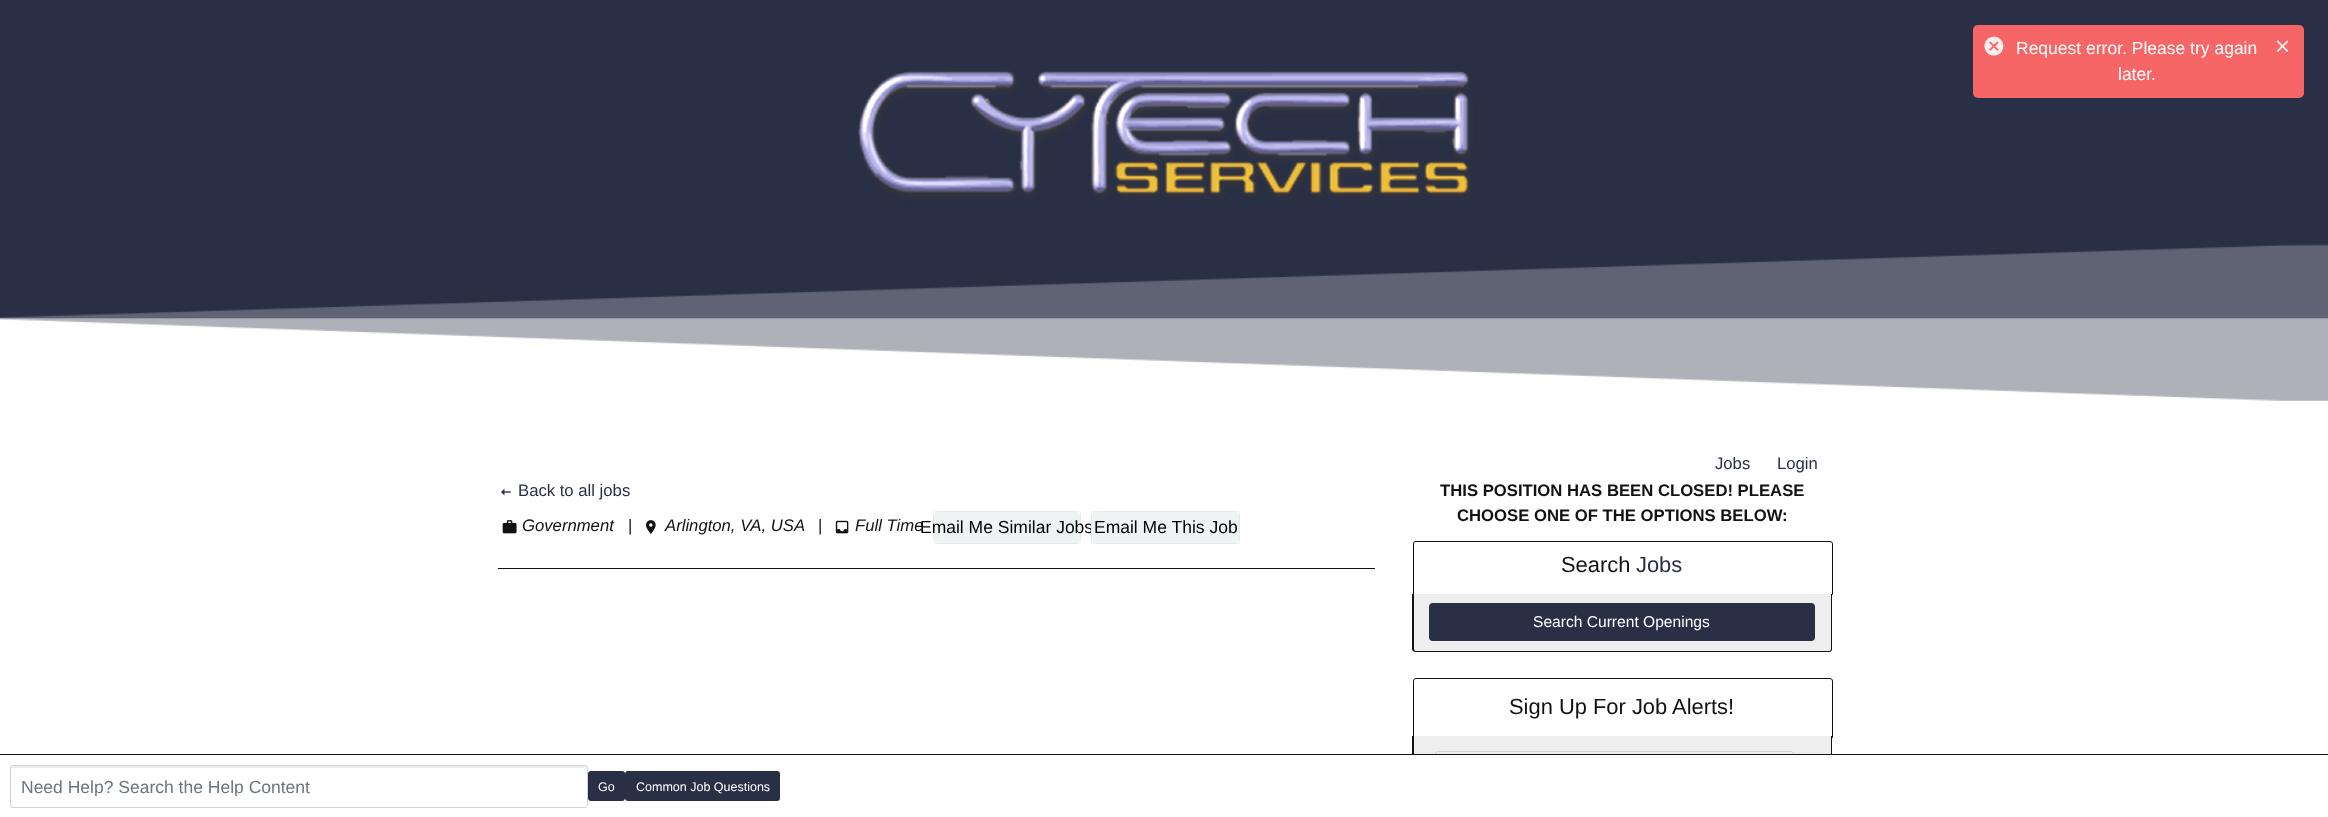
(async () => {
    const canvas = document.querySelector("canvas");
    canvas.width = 2328;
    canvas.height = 817;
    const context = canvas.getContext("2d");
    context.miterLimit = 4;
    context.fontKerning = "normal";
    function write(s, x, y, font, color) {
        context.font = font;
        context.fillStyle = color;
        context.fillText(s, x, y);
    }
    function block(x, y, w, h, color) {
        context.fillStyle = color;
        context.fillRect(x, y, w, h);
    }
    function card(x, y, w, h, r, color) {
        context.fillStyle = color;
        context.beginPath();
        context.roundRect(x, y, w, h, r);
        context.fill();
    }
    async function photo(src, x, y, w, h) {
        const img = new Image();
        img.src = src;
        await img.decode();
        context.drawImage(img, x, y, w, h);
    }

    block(0, 0, 2328, 817, "rgb(255, 255, 255)");
    await photo("media/1.png", 0, 0, 2328, 401);
    card(1973, 25, 331, 73, 5, "rgb(246, 85, 85)");
    await photo("media/2.png", 1984, 36, 20, 20);
    card(1973, 25, 331, 73, 5, "rgba(255, 255, 255, 0.1)");
    write("Request error. Please try again", 2016, 54, "17.5px Liberation Sans", "rgb(255, 255, 255)");
    write("later.", 2118, 80, "17.5px Liberation Sans", "rgb(255, 255, 255)");
    await photo("media/3.png", 2276, 40, 13, 12);
    write("Jobs", 1715, 469, "16.7px Liberation Sans", "rgb(41, 47, 69)");
    write("Login", 1777, 469, "16.7px Liberation Sans", "rgb(41, 47, 69)");
    await photo("media/4.png", 501, 488, 10, 8);
    write("Back to all jobs", 518, 496, "16.7px Liberation Sans", "rgb(41, 47, 69)");
    await photo("media/5.png", 502, 520, 15, 14);
    write("Government", 522, 531, "italic 16.7px Liberation Sans", "rgb(18, 18, 18)");
    write("|", 628, 531, "16.7px Liberation Sans", "rgb(18, 18, 18)");
    await photo("media/6.png", 646, 520, 10, 14);
    write("Arlington, VA, USA", 665, 531, "italic 16.7px Liberation Sans", "rgb(18, 18, 18)");
    write("|", 818, 531, "16.7px Liberation Sans", "rgb(18, 18, 18)");
    await photo("media/7.png", 835, 520, 14, 14);
    write("Full Time", 855, 531, "italic 16.7px Liberation Sans", "rgb(18, 18, 18)");
    card(933, 511, 148, 33, 6, "rgb(240, 243, 244)");
    context.strokeStyle = "rgba(0, 0, 0, 0.04)";
    context.strokeRect(933.5, 511.5, 147, 32);
    write("Email Me Similar Jobs", 920, 533, "17.5px Liberation Sans", "rgb(0, 0, 0)");
    card(1091, 511, 149, 33, 6, "rgb(240, 243, 244)");
    context.strokeRect(1091.5, 511.5, 148, 32);
    write("Email Me This Job", 1094, 533, "17.5px Liberation Sans", "rgb(0, 0, 0)");
    block(498, 568, 877, 1, "rgb(18, 18, 18)");
    write("THIS POSITION HAS BEEN CLOSED! PLEASE", 1440, 496, "bold 16.7px Liberation Sans", "rgb(18, 18, 18)");
    write("CHOOSE ONE OF THE OPTIONS BELOW:", 1457, 521, "bold 16.7px Liberation Sans", "rgb(18, 18, 18)");
    context.beginPath();
    context.roundRect(1413.5, 541.5, 419, 53, [2.5, 2.5, 0, 0]);
    context.strokeStyle = "rgb(18, 18, 18)";
    context.stroke();
    write("Search", 1561, 572, "21.9px Liberation Sans", "rgb(18, 18, 18)");
    write("Jobs", 1636, 572, "21.9px Liberation Sans", "rgb(41, 47, 69)");
    context.fillStyle = "rgb(238, 238, 238)";
    context.beginPath();
    context.roundRect(1414, 594, 417, 57, [0, 0, 2, 2]);
    context.fill();
    context.fillStyle = "rgb(18, 18, 18)";
    context.beginPath();
    context.moveTo(1412, 594);
    context.lineTo(1832, 594);
    context.lineTo(1832, 649);
    context.bezierCurveTo(1832, 651, 1831, 652, 1829, 652);
    context.lineTo(1416, 652);
    context.bezierCurveTo(1414, 652, 1412, 651, 1412, 649);
    context.closePath();
    context.moveTo(1414, 594);
    context.lineTo(1831, 594);
    context.lineTo(1831, 649);
    context.bezierCurveTo(1831, 650, 1830, 651, 1829, 651);
    context.lineTo(1416, 651);
    context.bezierCurveTo(1415, 651, 1414, 650, 1414, 649);
    context.closePath();
    context.fill("evenodd");
    card(1429, 603, 386, 38, 4, "rgb(41, 47, 69)");
    write("Search Current Openings", 1533, 627, "15.6px Liberation Sans", "rgb(255, 255, 255)");
    context.beginPath();
    context.roundRect(1413.5, 678.5, 419, 59, [2.5, 2.5, 0, 0]);
    context.stroke();
    write("Sign Up For Job Alerts!", 1509, 714, "21.9px Liberation Sans", "rgb(18, 18, 18)");
    block(1414, 736, 417, 18, "rgb(238, 238, 238)");
    context.fillStyle = "rgb(18, 18, 18)";
    context.beginPath();
    context.moveTo(1412, 736);
    context.lineTo(1832, 736);
    context.lineTo(1832, 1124);
    context.bezierCurveTo(1832, 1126, 1831, 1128, 1829, 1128);
    context.lineTo(1416, 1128);
    context.bezierCurveTo(1414, 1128, 1412, 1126, 1412, 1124);
    context.closePath();
    context.moveTo(1414, 736);
    context.lineTo(1831, 736);
    context.lineTo(1831, 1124);
    context.bezierCurveTo(1831, 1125, 1830, 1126, 1829, 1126);
    context.lineTo(1416, 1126);
    context.bezierCurveTo(1415, 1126, 1414, 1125, 1414, 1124);
    context.closePath();
    context.fill("evenodd");
    context.fillStyle = "rgb(236, 236, 236)";
    context.beginPath();
    context.moveTo(1438, 754);
    context.lineTo(1791, 754);
    context.bezierCurveTo(1793, 754, 1792, 759, 1792, 764);
    context.lineTo(1792, 805);
    context.bezierCurveTo(1793, 804, 1793, 804, 1793, 803);
    context.lineTo(1793, 755);
    context.bezierCurveTo(1793, 754, 1792, 753, 1791, 753);
    context.lineTo(1438, 753);
    context.bezierCurveTo(1437, 753, 1436, 754, 1436, 755);
    context.lineTo(1436, 756);
    context.bezierCurveTo(1436, 755, 1437, 754, 1438, 754);
    context.closePath();
    context.fill();
    context.beginPath();
    context.roundRect(1435.5, 751.5, 358, 54, 2.5);
    context.strokeStyle = "rgb(206, 212, 218)";
    context.stroke();
    block(1412, 755, 420, 62, "rgb(255, 255, 255)");
    block(0, 754, 2328, 1, "rgb(18, 18, 18)");
    context.fillStyle = "rgb(236, 236, 236)";
    context.beginPath();
    context.moveTo(13, 768);
    context.lineTo(584, 768);
    context.bezierCurveTo(585, 768, 586, 768, 586, 769);
    context.bezierCurveTo(586, 768, 586, 766, 584, 766);
    context.lineTo(13, 766);
    context.lineTo(11, 767);
    context.lineTo(11, 769);
    context.bezierCurveTo(11, 768, 12, 768, 13, 768);
    context.closePath();
    context.fill();
    context.beginPath();
    context.roundRect(10.5, 765.5, 577, 42, 2.5);
    context.stroke();
    context.save();
    context.beginPath();
    context.rect(21, 776, 555, 20);
    context.clip();
    write("Need Help? Search the Help Content", 21, 793, "17.5px Liberation Sans", "rgb(108, 117, 125)");
    context.restore();
    card(588, 771, 37, 30, 3, "rgb(41, 47, 69)");
    write("Go", 598, 791, "12.5px Liberation Sans", "rgb(255, 255, 255)");
    card(625, 771, 155, 30, 3, "rgb(41, 47, 69)");
    write("Common Job Questions", 636, 791, "12.5px Liberation Sans", "rgb(255, 255, 255)");
})();
